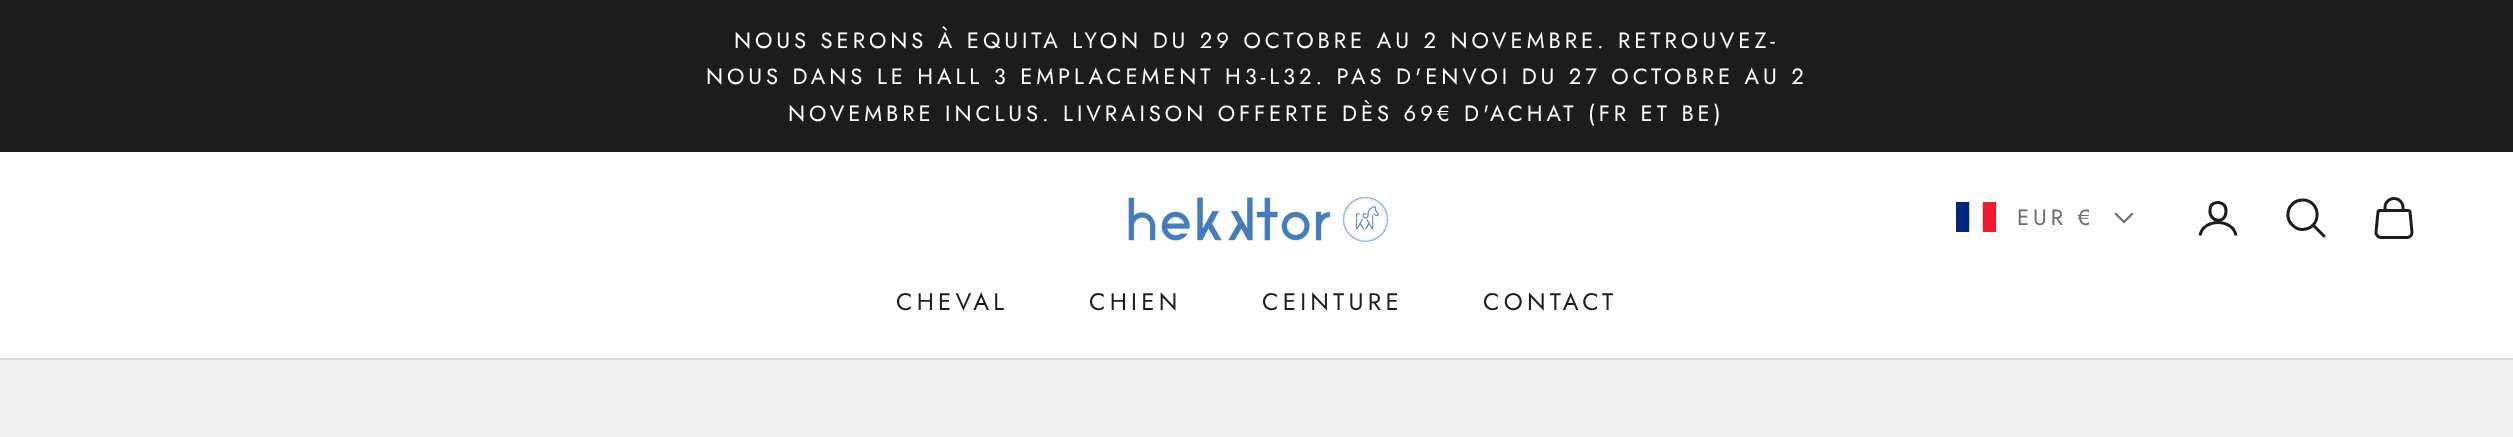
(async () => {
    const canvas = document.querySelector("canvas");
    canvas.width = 2513;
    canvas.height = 437;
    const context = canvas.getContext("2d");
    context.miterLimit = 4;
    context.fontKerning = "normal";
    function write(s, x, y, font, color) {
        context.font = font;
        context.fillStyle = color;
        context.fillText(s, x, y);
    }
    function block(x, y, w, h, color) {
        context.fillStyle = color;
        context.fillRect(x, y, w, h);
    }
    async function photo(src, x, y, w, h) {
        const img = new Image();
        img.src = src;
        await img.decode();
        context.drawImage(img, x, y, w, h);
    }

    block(0, 0, 2513, 437, "rgb(239, 239, 239)");
    block(0, 0, 2513, 152, "rgb(28, 28, 28)");
    context.letterSpacing = "3.95px";
    write("NOUS SERONS À EQUITA LYON DU 29 OCTOBRE AU 2 NOVEMBRE. RETROUVEZ-", 734, 48, "22px Jost", "rgb(255, 255, 255)");
    write("NOUS DANS LE HALL 3 EMPLACEMENT H3-L32. PAS D'ENVOI DU 27 OCTOBRE AU 2", 706, 84, "22px Jost", "rgb(255, 255, 255)");
    write("NOVEMBRE INCLUS. LIVRAISON OFFERTE DÈS 69€ D'ACHAT (FR ET BE)", 788, 121, "22px Jost", "rgb(255, 255, 255)");
    block(0, 152, 2513, 206, "rgb(255, 255, 255)");
    block(0, 358, 2513, 2, "rgb(221, 221, 221)");
    await photo("media/1.png", 1128, 196, 261, 46);
    await photo("media/2.png", 1956, 202, 40, 30);
    write("EUR €", 2017, 225, "22px Jost", "rgb(107, 107, 107)");
    context.beginPath();
    context.moveTo(2116, 214);
    context.lineTo(2124, 222);
    context.lineTo(2132, 214);
    context.strokeStyle = "rgb(107, 107, 107)";
    context.lineWidth = 2;
    context.lineCap = "square";
    context.stroke();
    context.beginPath();
    context.moveTo(2226, 211.5);
    context.bezierCurveTo(2225.5, 225, 2208.5, 222, 2210, 209.5);
    context.bezierCurveTo(2211, 199, 2227, 200.5, 2226, 211.5);
    context.closePath();
    context.strokeStyle = "rgb(28, 28, 28)";
    context.lineWidth = 3;
    context.lineCap = "round";
    context.lineJoin = "round";
    context.stroke();
    context.beginPath();
    context.moveTo(2200, 235.5);
    context.bezierCurveTo(2203, 218, 2233, 218, 2236, 235.5);
    context.lineCap = "butt";
    context.lineJoin = "miter";
    context.stroke();
    context.beginPath();
    context.moveTo(2302.5, 200);
    context.bezierCurveTo(2287.5, 200, 2282, 220, 2295.5, 227.5);
    context.bezierCurveTo(2297.5, 229, 2300, 229.5, 2302.5, 229.5);
    context.bezierCurveTo(2322.5, 228.5, 2321.5, 200, 2302.5, 200);
    context.closePath();
    context.stroke();
    context.beginPath();
    context.moveTo(2313.5, 225.5);
    context.lineTo(2324, 236);
    context.lineCap = "round";
    context.stroke();
    await photo("media/3.png", 2374, 197, 40, 42);
    context.letterSpacing = "4.25px";
    write("CHEVAL", 896, 310, "24px Jost", "rgb(28, 28, 28)");
    write("CHIEN", 1089, 310, "24px Jost", "rgb(28, 28, 28)");
    write("CEINTURE", 1262, 310, "24px Jost", "rgb(28, 28, 28)");
    write("CONTACT", 1483, 310, "24px Jost", "rgb(28, 28, 28)");
})();
